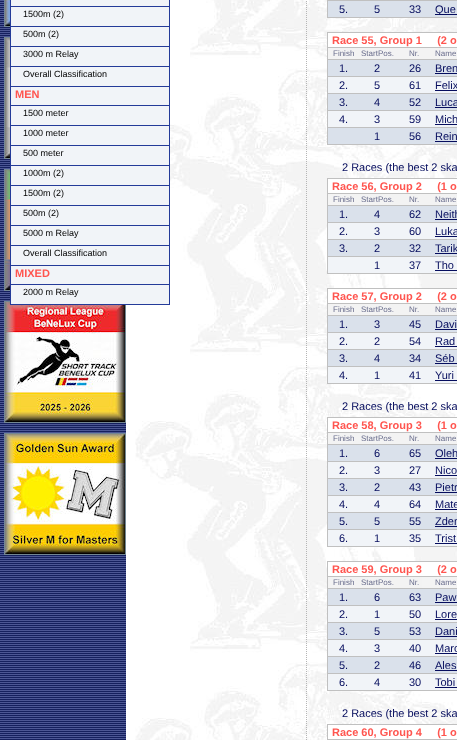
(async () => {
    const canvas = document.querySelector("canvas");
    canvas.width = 457;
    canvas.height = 740;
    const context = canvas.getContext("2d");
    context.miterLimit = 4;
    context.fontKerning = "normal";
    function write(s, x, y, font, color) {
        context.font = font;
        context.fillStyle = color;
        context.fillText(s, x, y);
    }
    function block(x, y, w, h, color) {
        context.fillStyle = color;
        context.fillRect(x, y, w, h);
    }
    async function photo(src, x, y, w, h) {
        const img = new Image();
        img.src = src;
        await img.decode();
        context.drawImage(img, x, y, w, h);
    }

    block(0, 0, 457, 740, "rgb(255, 255, 255)");
    await photo("media/1.png", 0, 0, 126, 740);
    context.strokeStyle = "rgb(115, 135, 147)";
    context.strokeRect(4.5, -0.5, 121, 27);
    context.strokeRect(4.5, 37.5, 121, 121);
    context.strokeRect(4.5, 169.5, 121, 121);
    context.strokeRect(4.5, 301.5, 121, 121);
    await photo("media/5.png", 5, 302, 120, 120);
    await photo("media/7.png", 135, 0, 322, 740);
    block(10, 0, 160, 305, "rgb(36, 59, 153)");
    block(11, 0, 158, 6, "rgb(241, 244, 248)");
    await photo("media/2.png", 5, 0, 5, 26);
    await photo("media/3.png", 5, 38, 5, 120);
    await photo("media/4.png", 5, 170, 5, 120);
    context.strokeRect(4.5, 433.5, 121, 121);
    await photo("media/6.png", 5, 434, 120, 120);
    context.beginPath();
    context.moveTo(306.5, -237);
    context.lineTo(306.5, 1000);
    context.strokeStyle = "rgb(181, 181, 181)";
    context.setLineDash([1, 1]);
    context.stroke();
    block(327, 17, 130, 1, "rgb(192, 192, 192)");
    block(327, 0, 1, 18, "rgb(192, 192, 192)");
    block(328, 1, 129, 16, "rgb(218, 225, 235)");
    write("5.", 339, 13, "11px Liberation Sans", "rgb(6, 13, 94)");
    write("5", 374, 13, "11px Liberation Sans", "rgb(6, 13, 94)");
    write("33", 409, 13, "11px Liberation Sans", "rgb(6, 13, 94)");
    block(327, 0, 130, 1, "rgb(192, 192, 192)");
    block(435, 14, 22, 1, "rgb(6, 13, 94)");
    write("Que", 435, 13, "11px Liberation Sans", "rgb(6, 13, 94)");
    block(327, 32, 130, 1, "rgb(192, 192, 192)");
    block(327, 144, 130, 1, "rgb(192, 192, 192)");
    block(327, 32, 1, 113, "rgb(192, 192, 192)");
    block(328, 33, 129, 14, "rgb(255, 255, 255)");
    write("Race 55, Group 1     (2 o", 332, 44, "bold 11px Liberation Sans", "rgb(255, 85, 79)");
    block(328, 48, 129, 11, "rgb(243, 243, 243)");
    block(327, 47, 130, 1, "rgb(192, 192, 192)");
    block(327, 59, 130, 1, "rgb(192, 192, 192)");
    write("Finish", 333, 56, "8px Liberation Sans", "rgb(104, 108, 140)");
    write("StartPos.", 361, 56, "8px Liberation Sans", "rgb(104, 108, 140)");
    write("Nr.", 409, 56, "8px Liberation Sans", "rgb(104, 108, 140)");
    write("Name", 435, 56, "8px Liberation Sans", "rgb(104, 108, 140)");
    block(328, 60, 129, 16, "rgb(218, 225, 235)");
    write("1.", 339, 72, "11px Liberation Sans", "rgb(6, 13, 94)");
    write("2", 374, 72, "11px Liberation Sans", "rgb(6, 13, 94)");
    write("26", 409, 72, "11px Liberation Sans", "rgb(6, 13, 94)");
    write("Bren", 435, 72, "11px Liberation Sans", "rgb(6, 13, 94)");
    block(435, 73, 22, 1, "rgb(6, 13, 94)");
    block(328, 77, 129, 16, "rgb(241, 244, 248)");
    write("2.", 339, 89, "11px Liberation Sans", "rgb(6, 13, 94)");
    write("5", 374, 89, "11px Liberation Sans", "rgb(6, 13, 94)");
    write("61", 409, 89, "11px Liberation Sans", "rgb(6, 13, 94)");
    block(327, 76, 130, 1, "rgb(192, 192, 192)");
    write("Felix", 435, 89, "11px Liberation Sans", "rgb(6, 13, 94)");
    block(435, 90, 22, 1, "rgb(6, 13, 94)");
    block(328, 94, 129, 16, "rgb(218, 225, 235)");
    write("3.", 339, 106, "11px Liberation Sans", "rgb(6, 13, 94)");
    write("4", 374, 106, "11px Liberation Sans", "rgb(6, 13, 94)");
    write("52", 409, 106, "11px Liberation Sans", "rgb(6, 13, 94)");
    block(327, 93, 130, 1, "rgb(192, 192, 192)");
    write("Luca", 435, 106, "11px Liberation Sans", "rgb(6, 13, 94)");
    block(435, 107, 22, 1, "rgb(6, 13, 94)");
    block(328, 111, 129, 16, "rgb(241, 244, 248)");
    write("4.", 339, 123, "11px Liberation Sans", "rgb(6, 13, 94)");
    write("3", 374, 123, "11px Liberation Sans", "rgb(6, 13, 94)");
    write("59", 409, 123, "11px Liberation Sans", "rgb(6, 13, 94)");
    block(327, 110, 130, 1, "rgb(192, 192, 192)");
    write("Mich", 435, 123, "11px Liberation Sans", "rgb(6, 13, 94)");
    block(435, 124, 22, 1, "rgb(6, 13, 94)");
    block(328, 128, 129, 16, "rgb(218, 225, 235)");
    write("1", 374, 140, "11px Liberation Sans", "rgb(6, 13, 94)");
    write("56", 409, 140, "11px Liberation Sans", "rgb(6, 13, 94)");
    block(327, 127, 130, 1, "rgb(192, 192, 192)");
    write("Rein", 435, 140, "11px Liberation Sans", "rgb(6, 13, 94)");
    block(435, 141, 22, 1, "rgb(6, 13, 94)");
    write("2 Races (the best 2 ska", 342, 171, "11px Liberation Sans", "rgb(6, 13, 94)");
    block(327, 178, 130, 1, "rgb(192, 192, 192)");
    block(327, 273, 130, 1, "rgb(192, 192, 192)");
    block(327, 178, 1, 96, "rgb(192, 192, 192)");
    block(328, 179, 129, 14, "rgb(255, 255, 255)");
    write("Race 56, Group 2     (1 o", 332, 190, "bold 11px Liberation Sans", "rgb(255, 85, 79)");
    block(345, 194, 112, 11, "rgb(243, 243, 243)");
    block(327, 193, 130, 1, "rgb(192, 192, 192)");
    block(327, 205, 130, 1, "rgb(192, 192, 192)");
    write("Finish", 333, 202, "8px Liberation Sans", "rgb(104, 108, 140)");
    write("StartPos.", 361, 202, "8px Liberation Sans", "rgb(104, 108, 140)");
    write("Nr.", 409, 202, "8px Liberation Sans", "rgb(104, 108, 140)");
    write("Name", 435, 202, "8px Liberation Sans", "rgb(104, 108, 140)");
    block(328, 206, 129, 16, "rgb(218, 225, 235)");
    write("1.", 339, 218, "11px Liberation Sans", "rgb(6, 13, 94)");
    write("4", 374, 218, "11px Liberation Sans", "rgb(6, 13, 94)");
    write("62", 409, 218, "11px Liberation Sans", "rgb(6, 13, 94)");
    write("Neith", 435, 218, "11px Liberation Sans", "rgb(6, 13, 94)");
    block(435, 219, 22, 1, "rgb(6, 13, 94)");
    block(328, 223, 129, 16, "rgb(241, 244, 248)");
    write("2.", 339, 235, "11px Liberation Sans", "rgb(6, 13, 94)");
    write("3", 374, 235, "11px Liberation Sans", "rgb(6, 13, 94)");
    write("60", 409, 235, "11px Liberation Sans", "rgb(6, 13, 94)");
    block(327, 222, 130, 1, "rgb(192, 192, 192)");
    write("Luka", 435, 235, "11px Liberation Sans", "rgb(6, 13, 94)");
    block(435, 236, 22, 1, "rgb(6, 13, 94)");
    block(328, 240, 129, 16, "rgb(218, 225, 235)");
    write("3.", 339, 252, "11px Liberation Sans", "rgb(6, 13, 94)");
    write("2", 374, 252, "11px Liberation Sans", "rgb(6, 13, 94)");
    write("32", 409, 252, "11px Liberation Sans", "rgb(6, 13, 94)");
    block(327, 239, 130, 1, "rgb(192, 192, 192)");
    write("Tarik", 435, 252, "11px Liberation Sans", "rgb(6, 13, 94)");
    block(435, 253, 22, 1, "rgb(6, 13, 94)");
    block(328, 257, 129, 16, "rgb(241, 244, 248)");
    write("1", 374, 269, "11px Liberation Sans", "rgb(6, 13, 94)");
    write("37", 409, 269, "11px Liberation Sans", "rgb(6, 13, 94)");
    block(327, 256, 130, 1, "rgb(192, 192, 192)");
    write("Tho", 435, 269, "11px Liberation Sans", "rgb(6, 13, 94)");
    block(435, 270, 22, 1, "rgb(6, 13, 94)");
    block(327, 288, 130, 1, "rgb(192, 192, 192)");
    block(327, 383, 130, 1, "rgb(192, 192, 192)");
    block(327, 288, 1, 96, "rgb(192, 192, 192)");
    block(328, 289, 129, 14, "rgb(255, 255, 255)");
    write("Race 57, Group 2     (2 o", 332, 300, "bold 11px Liberation Sans", "rgb(255, 85, 79)");
    block(328, 304, 129, 11, "rgb(243, 243, 243)");
    block(327, 303, 130, 1, "rgb(192, 192, 192)");
    block(327, 315, 130, 1, "rgb(192, 192, 192)");
    write("Finish", 333, 312, "8px Liberation Sans", "rgb(104, 108, 140)");
    write("StartPos.", 361, 312, "8px Liberation Sans", "rgb(104, 108, 140)");
    write("Nr.", 409, 312, "8px Liberation Sans", "rgb(104, 108, 140)");
    write("Name", 435, 312, "8px Liberation Sans", "rgb(104, 108, 140)");
    block(328, 316, 129, 16, "rgb(218, 225, 235)");
    write("1.", 339, 328, "11px Liberation Sans", "rgb(6, 13, 94)");
    write("3", 374, 328, "11px Liberation Sans", "rgb(6, 13, 94)");
    write("45", 409, 328, "11px Liberation Sans", "rgb(6, 13, 94)");
    write("Davi", 435, 328, "11px Liberation Sans", "rgb(6, 13, 94)");
    block(435, 329, 22, 1, "rgb(6, 13, 94)");
    block(328, 333, 129, 16, "rgb(241, 244, 248)");
    write("2.", 339, 345, "11px Liberation Sans", "rgb(6, 13, 94)");
    write("2", 374, 345, "11px Liberation Sans", "rgb(6, 13, 94)");
    write("54", 409, 345, "11px Liberation Sans", "rgb(6, 13, 94)");
    block(327, 332, 130, 1, "rgb(192, 192, 192)");
    write("Rad", 435, 345, "11px Liberation Sans", "rgb(6, 13, 94)");
    block(435, 346, 22, 1, "rgb(6, 13, 94)");
    block(328, 350, 129, 16, "rgb(218, 225, 235)");
    write("3.", 339, 362, "11px Liberation Sans", "rgb(6, 13, 94)");
    write("4", 374, 362, "11px Liberation Sans", "rgb(6, 13, 94)");
    write("34", 409, 362, "11px Liberation Sans", "rgb(6, 13, 94)");
    block(327, 349, 130, 1, "rgb(192, 192, 192)");
    write("Séb", 435, 362, "11px Liberation Sans", "rgb(6, 13, 94)");
    block(435, 363, 22, 1, "rgb(6, 13, 94)");
    block(328, 367, 129, 16, "rgb(241, 244, 248)");
    write("4.", 339, 379, "11px Liberation Sans", "rgb(6, 13, 94)");
    write("1", 374, 379, "11px Liberation Sans", "rgb(6, 13, 94)");
    write("41", 409, 379, "11px Liberation Sans", "rgb(6, 13, 94)");
    block(327, 366, 130, 1, "rgb(192, 192, 192)");
    write("Yuri", 435, 379, "11px Liberation Sans", "rgb(6, 13, 94)");
    block(435, 380, 22, 1, "rgb(6, 13, 94)");
    write("2 Races (the best 2 ska", 342, 410, "11px Liberation Sans", "rgb(6, 13, 94)");
    block(327, 417, 130, 1, "rgb(192, 192, 192)");
    block(327, 546, 130, 1, "rgb(192, 192, 192)");
    block(327, 417, 1, 130, "rgb(192, 192, 192)");
    block(328, 418, 129, 14, "rgb(255, 255, 255)");
    write("Race 58, Group 3     (1 o", 332, 429, "bold 11px Liberation Sans", "rgb(255, 85, 79)");
    block(328, 433, 129, 11, "rgb(243, 243, 243)");
    block(327, 432, 130, 1, "rgb(192, 192, 192)");
    block(327, 444, 130, 1, "rgb(192, 192, 192)");
    write("Finish", 333, 441, "8px Liberation Sans", "rgb(104, 108, 140)");
    write("StartPos.", 361, 441, "8px Liberation Sans", "rgb(104, 108, 140)");
    write("Nr.", 409, 441, "8px Liberation Sans", "rgb(104, 108, 140)");
    write("Name", 435, 441, "8px Liberation Sans", "rgb(104, 108, 140)");
    block(328, 445, 129, 16, "rgb(218, 225, 235)");
    write("1.", 339, 457, "11px Liberation Sans", "rgb(6, 13, 94)");
    write("6", 374, 457, "11px Liberation Sans", "rgb(6, 13, 94)");
    write("65", 409, 457, "11px Liberation Sans", "rgb(6, 13, 94)");
    write("Oleh", 435, 457, "11px Liberation Sans", "rgb(6, 13, 94)");
    block(435, 458, 22, 1, "rgb(6, 13, 94)");
    block(328, 462, 129, 16, "rgb(241, 244, 248)");
    write("2.", 339, 474, "11px Liberation Sans", "rgb(6, 13, 94)");
    write("3", 374, 474, "11px Liberation Sans", "rgb(6, 13, 94)");
    write("27", 409, 474, "11px Liberation Sans", "rgb(6, 13, 94)");
    block(327, 461, 130, 1, "rgb(192, 192, 192)");
    write("Nico", 435, 474, "11px Liberation Sans", "rgb(6, 13, 94)");
    block(435, 475, 22, 1, "rgb(6, 13, 94)");
    block(328, 479, 129, 16, "rgb(218, 225, 235)");
    write("3.", 339, 491, "11px Liberation Sans", "rgb(6, 13, 94)");
    write("2", 374, 491, "11px Liberation Sans", "rgb(6, 13, 94)");
    write("43", 409, 491, "11px Liberation Sans", "rgb(6, 13, 94)");
    block(327, 478, 130, 1, "rgb(192, 192, 192)");
    write("Pietr", 435, 491, "11px Liberation Sans", "rgb(6, 13, 94)");
    block(435, 492, 22, 1, "rgb(6, 13, 94)");
    block(328, 496, 129, 16, "rgb(241, 244, 248)");
    write("4.", 339, 508, "11px Liberation Sans", "rgb(6, 13, 94)");
    write("4", 374, 508, "11px Liberation Sans", "rgb(6, 13, 94)");
    write("64", 409, 508, "11px Liberation Sans", "rgb(6, 13, 94)");
    block(327, 495, 130, 1, "rgb(192, 192, 192)");
    write("Mate", 435, 508, "11px Liberation Sans", "rgb(6, 13, 94)");
    block(435, 509, 22, 1, "rgb(6, 13, 94)");
    block(328, 513, 129, 16, "rgb(218, 225, 235)");
    write("5.", 339, 525, "11px Liberation Sans", "rgb(6, 13, 94)");
    write("5", 374, 525, "11px Liberation Sans", "rgb(6, 13, 94)");
    write("55", 409, 525, "11px Liberation Sans", "rgb(6, 13, 94)");
    block(327, 512, 130, 1, "rgb(192, 192, 192)");
    write("Zden", 435, 525, "11px Liberation Sans", "rgb(6, 13, 94)");
    block(435, 526, 22, 1, "rgb(6, 13, 94)");
    block(328, 530, 129, 16, "rgb(241, 244, 248)");
    write("6.", 339, 542, "11px Liberation Sans", "rgb(6, 13, 94)");
    write("1", 374, 542, "11px Liberation Sans", "rgb(6, 13, 94)");
    write("35", 409, 542, "11px Liberation Sans", "rgb(6, 13, 94)");
    block(327, 529, 130, 1, "rgb(192, 192, 192)");
    write("Trist", 435, 542, "11px Liberation Sans", "rgb(6, 13, 94)");
    block(435, 543, 22, 1, "rgb(6, 13, 94)");
    block(327, 561, 130, 1, "rgb(192, 192, 192)");
    block(327, 690, 130, 1, "rgb(192, 192, 192)");
    block(327, 561, 1, 130, "rgb(192, 192, 192)");
    block(328, 562, 129, 14, "rgb(255, 255, 255)");
    write("Race 59, Group 3     (2 o", 332, 573, "bold 11px Liberation Sans", "rgb(255, 85, 79)");
    block(328, 577, 94, 11, "rgb(243, 243, 243)");
    block(327, 576, 130, 1, "rgb(192, 192, 192)");
    block(327, 588, 130, 1, "rgb(192, 192, 192)");
    write("Finish", 333, 585, "8px Liberation Sans", "rgb(104, 108, 140)");
    write("StartPos.", 361, 585, "8px Liberation Sans", "rgb(104, 108, 140)");
    write("Nr.", 409, 585, "8px Liberation Sans", "rgb(104, 108, 140)");
    write("Name", 435, 585, "8px Liberation Sans", "rgb(104, 108, 140)");
    block(328, 589, 129, 16, "rgb(218, 225, 235)");
    write("1.", 339, 601, "11px Liberation Sans", "rgb(6, 13, 94)");
    write("6", 374, 601, "11px Liberation Sans", "rgb(6, 13, 94)");
    write("63", 409, 601, "11px Liberation Sans", "rgb(6, 13, 94)");
    write("Paw", 435, 601, "11px Liberation Sans", "rgb(6, 13, 94)");
    block(435, 602, 22, 1, "rgb(6, 13, 94)");
    block(328, 606, 129, 16, "rgb(241, 244, 248)");
    write("2.", 339, 618, "11px Liberation Sans", "rgb(6, 13, 94)");
    write("1", 374, 618, "11px Liberation Sans", "rgb(6, 13, 94)");
    write("50", 409, 618, "11px Liberation Sans", "rgb(6, 13, 94)");
    block(327, 605, 130, 1, "rgb(192, 192, 192)");
    write("Lore", 435, 618, "11px Liberation Sans", "rgb(6, 13, 94)");
    block(435, 619, 22, 1, "rgb(6, 13, 94)");
    block(328, 623, 129, 16, "rgb(218, 225, 235)");
    write("3.", 339, 635, "11px Liberation Sans", "rgb(6, 13, 94)");
    write("5", 374, 635, "11px Liberation Sans", "rgb(6, 13, 94)");
    write("53", 409, 635, "11px Liberation Sans", "rgb(6, 13, 94)");
    block(327, 622, 130, 1, "rgb(192, 192, 192)");
    write("Dani", 435, 635, "11px Liberation Sans", "rgb(6, 13, 94)");
    block(435, 636, 22, 1, "rgb(6, 13, 94)");
    block(328, 640, 129, 16, "rgb(241, 244, 248)");
    write("4.", 339, 652, "11px Liberation Sans", "rgb(6, 13, 94)");
    write("3", 374, 652, "11px Liberation Sans", "rgb(6, 13, 94)");
    write("40", 409, 652, "11px Liberation Sans", "rgb(6, 13, 94)");
    block(327, 639, 130, 1, "rgb(192, 192, 192)");
    write("Marc", 435, 652, "11px Liberation Sans", "rgb(6, 13, 94)");
    block(435, 653, 22, 1, "rgb(6, 13, 94)");
    block(328, 657, 129, 16, "rgb(218, 225, 235)");
    write("5.", 339, 669, "11px Liberation Sans", "rgb(6, 13, 94)");
    write("2", 374, 669, "11px Liberation Sans", "rgb(6, 13, 94)");
    write("46", 409, 669, "11px Liberation Sans", "rgb(6, 13, 94)");
    block(327, 656, 130, 1, "rgb(192, 192, 192)");
    write("Ales", 435, 669, "11px Liberation Sans", "rgb(6, 13, 94)");
    block(435, 670, 22, 1, "rgb(6, 13, 94)");
    block(328, 674, 129, 16, "rgb(241, 244, 248)");
    write("6.", 339, 686, "11px Liberation Sans", "rgb(6, 13, 94)");
    write("4", 374, 686, "11px Liberation Sans", "rgb(6, 13, 94)");
    write("30", 409, 686, "11px Liberation Sans", "rgb(6, 13, 94)");
    block(327, 673, 130, 1, "rgb(192, 192, 192)");
    write("Tobi", 435, 686, "11px Liberation Sans", "rgb(6, 13, 94)");
    block(435, 687, 22, 1, "rgb(6, 13, 94)");
    write("2 Races (the best 2 ska", 342, 717, "11px Liberation Sans", "rgb(6, 13, 94)");
    block(327, 724, 130, 1, "rgb(192, 192, 192)");
    block(327, 724, 1, 16, "rgb(192, 192, 192)");
    block(328, 725, 129, 14, "rgb(255, 255, 255)");
    write("Race 60, Group 4     (1 o", 332, 736, "bold 11px Liberation Sans", "rgb(255, 85, 79)");
    block(327, 739, 130, 1, "rgb(192, 192, 192)");
    block(11, 7, 158, 19, "rgb(241, 244, 248)");
    write("1500m (2)", 23, 17, "9px Liberation Sans", "rgb(0, 0, 0)");
    block(11, 27, 158, 19, "rgb(241, 244, 248)");
    write("500m (2)", 23, 37, "9px Liberation Sans", "rgb(0, 0, 0)");
    block(11, 47, 158, 19, "rgb(241, 244, 248)");
    write("3000 m Relay", 23, 57, "9px Liberation Sans", "rgb(0, 0, 0)");
    block(11, 67, 158, 19, "rgb(241, 244, 248)");
    write("Overall Classification", 23, 77, "9px Liberation Sans", "rgb(0, 0, 0)");
    block(11, 87, 158, 18, "rgb(241, 244, 248)");
    write("MEN", 15, 98, "bold 11px Liberation Sans", "rgb(255, 85, 79)");
    block(11, 106, 158, 19, "rgb(241, 244, 248)");
    write("1500 meter", 23, 116, "9px Liberation Sans", "rgb(0, 0, 0)");
    block(11, 126, 158, 19, "rgb(241, 244, 248)");
    write("1000 meter", 23, 136, "9px Liberation Sans", "rgb(0, 0, 0)");
    block(11, 146, 158, 19, "rgb(241, 244, 248)");
    write("500 meter", 23, 156, "9px Liberation Sans", "rgb(0, 0, 0)");
    block(11, 166, 158, 19, "rgb(241, 244, 248)");
    write("1000m (2)", 23, 176, "9px Liberation Sans", "rgb(0, 0, 0)");
    block(11, 186, 158, 19, "rgb(241, 244, 248)");
    write("1500m (2)", 23, 196, "9px Liberation Sans", "rgb(0, 0, 0)");
    block(11, 206, 158, 19, "rgb(241, 244, 248)");
    write("500m (2)", 23, 216, "9px Liberation Sans", "rgb(0, 0, 0)");
    block(11, 226, 158, 19, "rgb(241, 244, 248)");
    write("5000 m Relay", 23, 236, "9px Liberation Sans", "rgb(0, 0, 0)");
    block(11, 246, 158, 19, "rgb(241, 244, 248)");
    write("Overall Classification", 23, 256, "9px Liberation Sans", "rgb(0, 0, 0)");
    block(11, 266, 158, 18, "rgb(241, 244, 248)");
    write("MIXED", 15, 277, "bold 11px Liberation Sans", "rgb(255, 85, 79)");
    block(11, 285, 158, 19, "rgb(241, 244, 248)");
    write("2000 m Relay", 23, 295, "9px Liberation Sans", "rgb(0, 0, 0)");
})();
